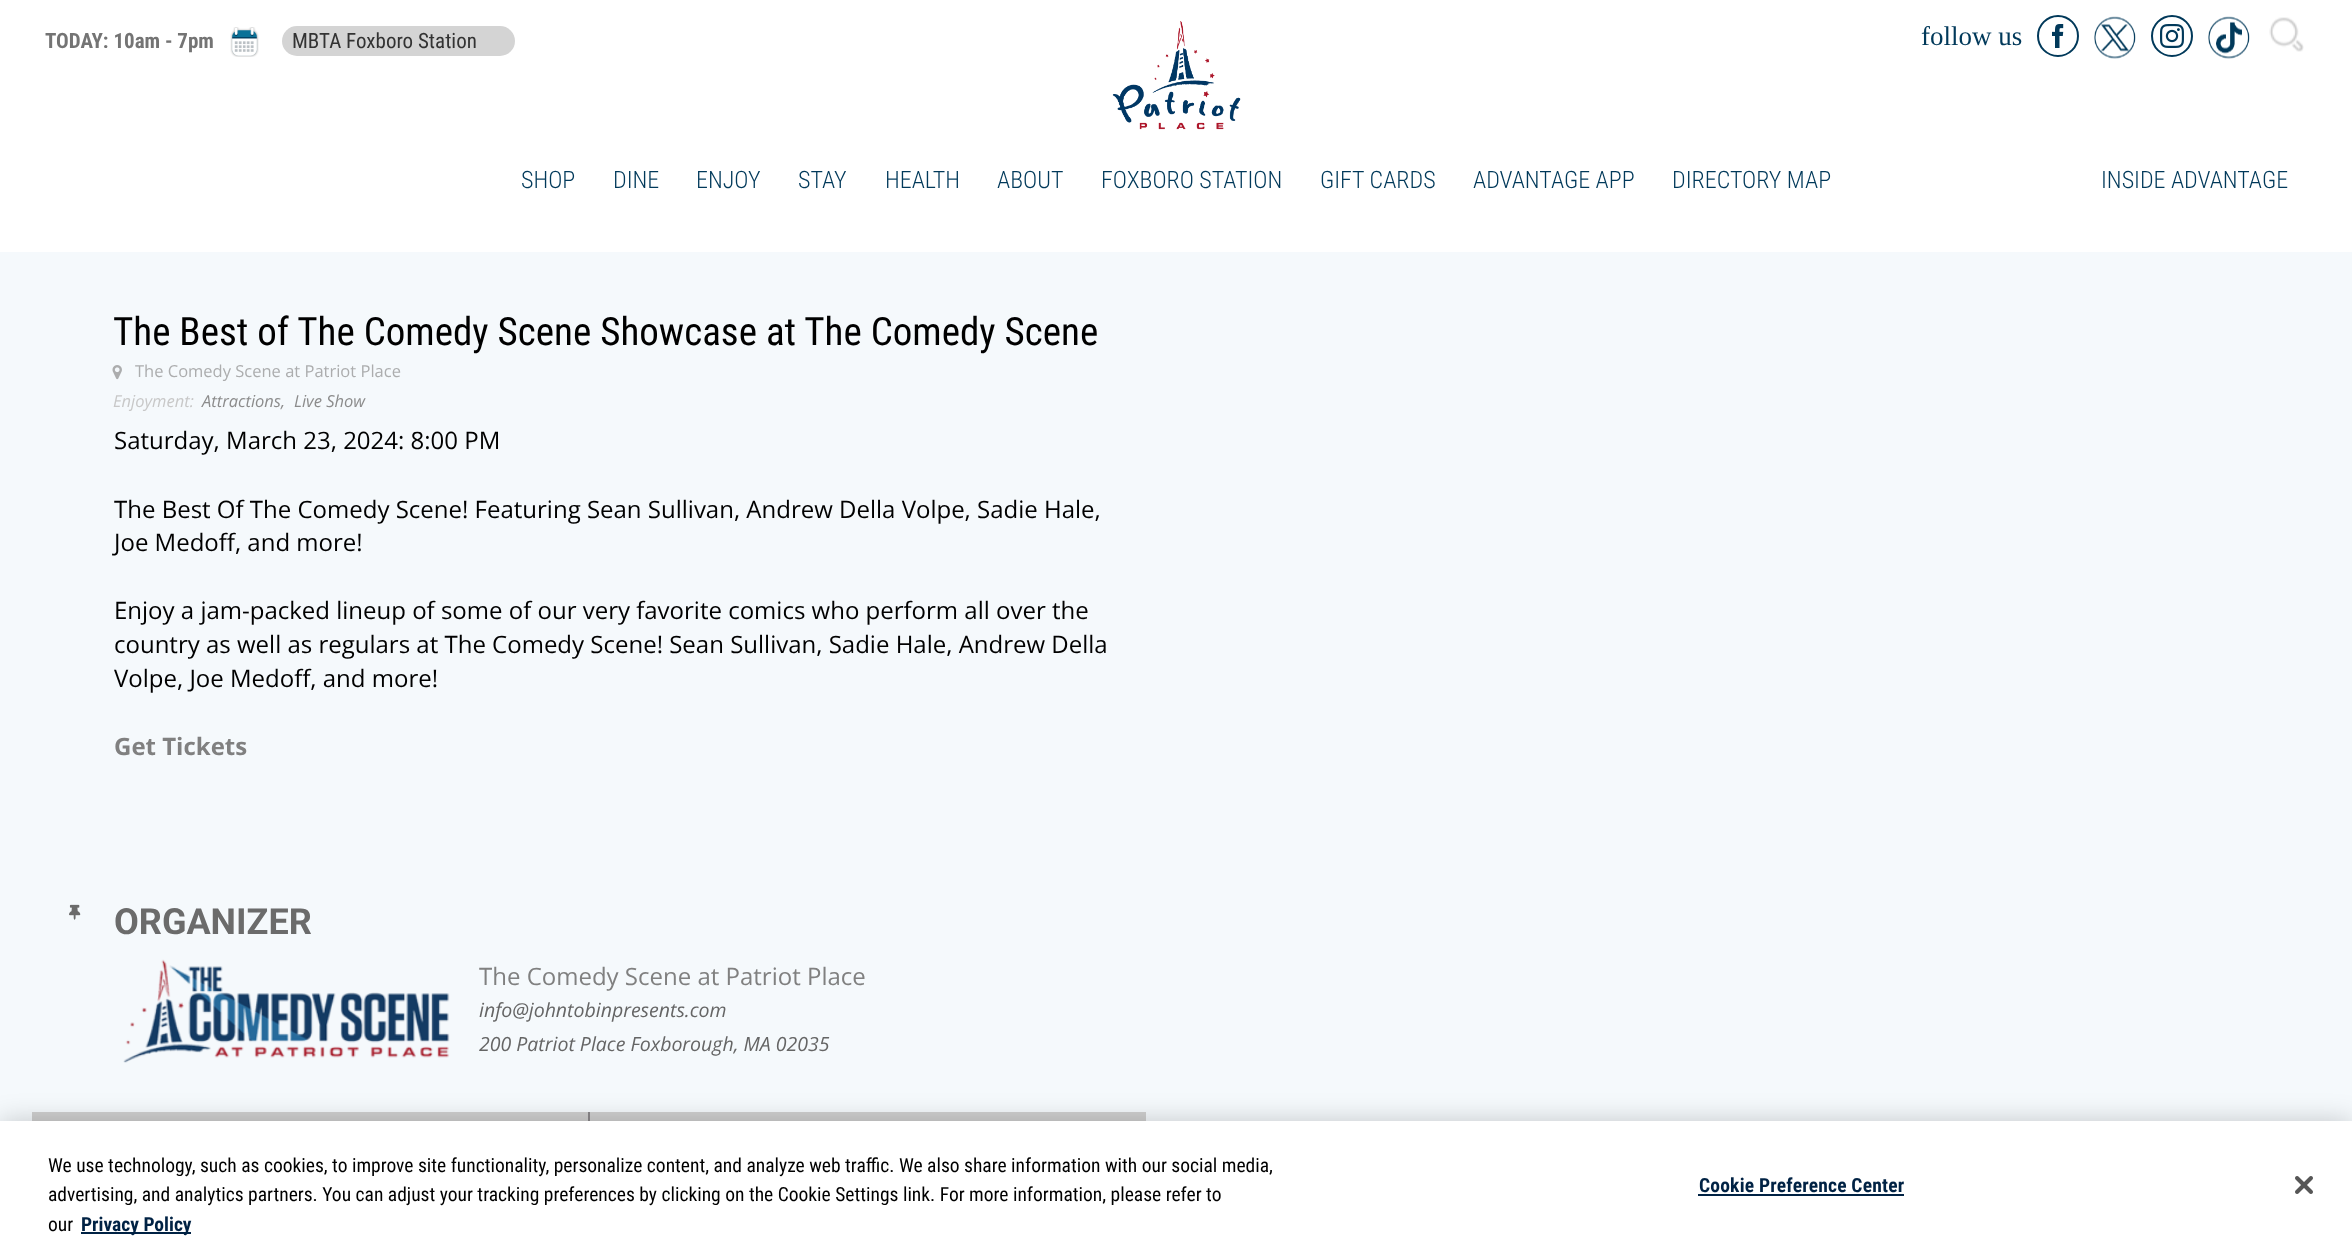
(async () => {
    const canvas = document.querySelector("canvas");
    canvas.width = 2352;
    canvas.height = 1253;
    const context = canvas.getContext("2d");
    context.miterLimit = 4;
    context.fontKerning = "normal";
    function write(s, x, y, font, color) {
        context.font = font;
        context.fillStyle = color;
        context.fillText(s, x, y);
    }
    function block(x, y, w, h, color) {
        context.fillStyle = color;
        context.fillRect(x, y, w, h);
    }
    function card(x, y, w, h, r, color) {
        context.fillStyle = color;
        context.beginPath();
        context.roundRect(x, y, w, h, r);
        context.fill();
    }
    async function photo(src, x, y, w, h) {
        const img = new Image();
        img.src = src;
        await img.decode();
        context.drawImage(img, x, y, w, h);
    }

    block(0, 0, 2352, 1253, "rgb(255, 255, 255)");
    write("TODAY: 10am - 7pm", 45, 48, "bold 21px Roboto Condensed", "rgb(116, 116, 116)");
    await photo("media/1.png", 230, 27, 29, 30);
    card(282, 26, 233, 30, 15, "rgb(212, 212, 212)");
    write("MBTA Foxboro Station", 292, 48, "21px Roboto Condensed", "rgb(51, 51, 51)");
    write("follow us", 1921, 45, "27px Liberation Serif", "rgb(1, 57, 90)");
    context.beginPath();
    context.arc(2058, 36, 20, 0, Math.PI * 2);
    context.strokeStyle = "rgb(1, 57, 90)";
    context.lineWidth = 2;
    context.stroke();
    await photo("media/2.png", 2052, 24, 12, 24);
    await photo("media/3.png", 2094, 16, 42, 43);
    context.beginPath();
    context.arc(2172, 36, 20, 0, Math.PI * 2);
    context.stroke();
    await photo("media/4.png", 2160, 24, 24, 24);
    await photo("media/5.png", 2208, 16, 42, 43);
    await photo("media/6.png", 2269, 17, 35, 35);
    await photo("media/7.png", 1112, 21, 129, 109);
    write("SHOP", 521, 188, "300 24px Roboto Condensed", "rgb(1, 57, 90)");
    write("DINE", 613, 188, "300 24px Roboto Condensed", "rgb(1, 57, 90)");
    write("ENJOY", 696, 188, "300 24px Roboto Condensed", "rgb(1, 57, 90)");
    write("STAY", 798, 188, "300 24px Roboto Condensed", "rgb(1, 57, 90)");
    write("HEALTH", 885, 188, "300 24px Roboto Condensed", "rgb(1, 57, 90)");
    write("ABOUT", 997, 188, "300 24px Roboto Condensed", "rgb(1, 57, 90)");
    write("FOXBORO STATION", 1101, 188, "300 24px Roboto Condensed", "rgb(1, 57, 90)");
    write("GIFT CARDS", 1320, 188, "300 24px Roboto Condensed", "rgb(1, 57, 90)");
    write("ADVANTAGE APP", 1473, 188, "300 24px Roboto Condensed", "rgb(1, 57, 90)");
    write("DIRECTORY MAP", 1672, 188, "300 24px Roboto Condensed", "rgb(1, 57, 90)");
    write("INSIDE ADVANTAGE", 2101, 188, "300 24px Roboto Condensed", "rgb(1, 57, 90)");
    block(0, 252, 2352, 869, "rgb(245, 249, 252)");
    write("The Best of The Comedy Scene Showcase at The Comedy Scene", 113, 345, "39px Roboto Condensed", "rgb(0, 0, 0)");
    await photo("media/8.png", 112, 365, 10, 15);
    write("The Comedy Scene at Patriot Place", 135, 377, "16.5px Open Sans", "rgb(172, 173, 174)");
    write("Enjoyment:", 113, 407, "italic 16.5px Open Sans", "rgb(200, 200, 200)");
    write("Attractions,", 202, 407, "italic 16.5px Open Sans", "rgb(140, 140, 140)");
    write("Live Show", 294, 407, "italic 16.5px Open Sans", "rgb(140, 140, 140)");
    write("Saturday, March 23, 2024: 8:00 PM", 114, 449, "24px Open Sans", "rgb(0, 0, 0)");
    write("The Best Of The Comedy Scene! Featuring Sean Sullivan, Andrew Della Volpe, Sadie Hale,", 114, 518, "24px Open Sans", "rgb(0, 0, 0)");
    write("Joe Medoff, and more!", 114, 551, "24px Open Sans", "rgb(0, 0, 0)");
    write("Enjoy a jam-packed lineup of some of our very favorite comics who perform all over the", 114, 619, "24px Open Sans", "rgb(0, 0, 0)");
    write("country as well as regulars at The Comedy Scene! Sean Sullivan, Sadie Hale, Andrew Della", 114, 653, "24px Open Sans", "rgb(0, 0, 0)");
    write("Volpe, Joe Medoff, and more!", 114, 687, "24px Open Sans", "rgb(0, 0, 0)");
    write("Get Tickets", 114, 755, "bold 24px Open Sans", "rgb(128, 128, 128)");
    await photo("media/9.png", 69, 904, 12, 16);
    write("ORGANIZER", 114, 934, "bold 36px Roboto", "rgb(107, 107, 107)");
    await photo("media/10.png", 123, 959, 327, 104);
    write("The Comedy Scene at Patriot Place", 479, 985, "24px Open Sans", "rgb(128, 128, 128)");
    write("info@johntobinpresents.com", 479, 1017, "italic 19.5px Open Sans", "rgb(101, 101, 101)");
    write("200 Patriot Place Foxborough, MA 02035", 479, 1051, "italic 19.5px Open Sans", "rgb(101, 101, 101)");
    block(32, 1112, 1114, 9, "rgb(207, 207, 207)");
    block(588, 1112, 2, 9, "rgb(138, 135, 138)");
    context.fillStyle = "rgba(0, 0, 0, 0.2)";
    context.filter = "blur(13.5px)";
    context.beginPath();
    context.rect(0, 1121, 2352, 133);
    context.fill();
    context.filter = "none";
    block(0, 1121, 2352, 132, "rgb(255, 255, 255)");
    write("We use technology, such as cookies, to improve site functionality, personalize content, and analyze web traffic. We also share information with our social media,", 48, 1172, "19.5px Roboto Condensed", "rgb(0, 0, 0)");
    write("advertising, and analytics partners. You can adjust your tracking preferences by clicking on the Cookie Settings link. For more information, please refer to", 48, 1201, "19.5px Roboto Condensed", "rgb(0, 0, 0)");
    write("our", 48, 1231, "19.5px Roboto Condensed", "rgb(0, 0, 0)");
    block(81, 1232, 110, 2, "rgb(0, 34, 68)");
    write("Privacy Policy", 81, 1231, "bold 19.5px Roboto Condensed", "rgb(0, 34, 68)");
    context.letterSpacing = "0.2px";
    write("Cookie Preference Center", 1699, 1192, "bold 19.5px Roboto Condensed", "rgb(0, 34, 68)");
    block(1698, 1194, 206, 2, "rgb(0, 34, 68)");
    await photo("media/11.png", 2295, 1176, 18, 18);
})();
